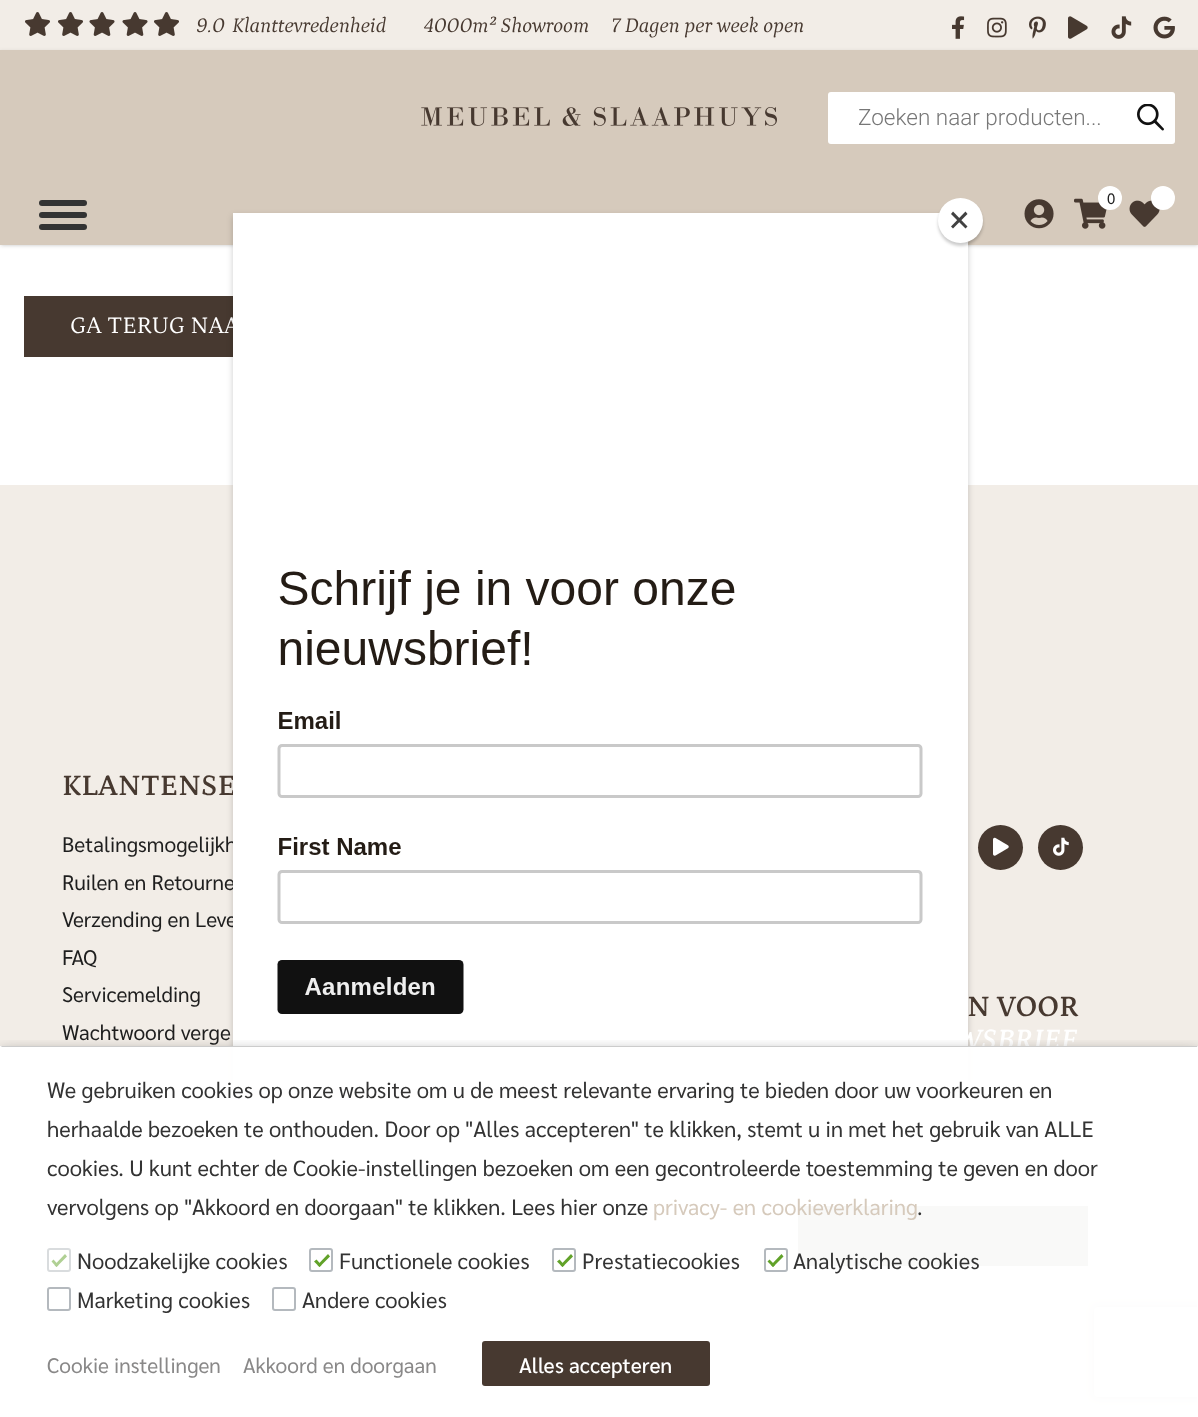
(async () => {
    const canvas = document.querySelector("canvas");
    canvas.width = 1198;
    canvas.height = 1417;
    const context = canvas.getContext("2d");
    context.miterLimit = 4;
    context.fontKerning = "normal";
    function write(s, x, y, font, color) {
        context.font = font;
        context.fillStyle = color;
        context.fillText(s, x, y);
    }
    function block(x, y, w, h, color) {
        context.fillStyle = color;
        context.fillRect(x, y, w, h);
    }
    function card(x, y, w, h, r, color) {
        context.fillStyle = color;
        context.beginPath();
        context.roundRect(x, y, w, h, r);
        context.fill();
    }
    async function photo(src, x, y, w, h) {
        const img = new Image();
        img.src = src;
        await img.decode();
        context.drawImage(img, x, y, w, h);
    }

    block(0, 0, 1198, 1417, "rgb(255, 255, 255)");
    block(0, 0, 1198, 50, "rgb(242, 237, 231)");
    await photo("media/1.png", 25, 12, 25, 24);
    await photo("media/1.png", 58, 12, 25, 24);
    await photo("media/2.png", 89, 12, 26, 24);
    await photo("media/2.png", 122, 12, 26, 24);
    await photo("media/1.png", 154, 12, 25, 24);
    write("9.0", 196, 32, "italic 21px Petrona", "rgb(71, 57, 48)");
    write("Klanttevredenheid", 232, 32, "italic 21px Petrona", "rgb(71, 57, 48)");
    write("4000m² Showroom", 424, 32, "italic 21px Petrona", "rgb(71, 57, 48)");
    write("7 Dagen per week open", 611, 32, "italic 21px Petrona", "rgb(71, 57, 48)");
    await photo("media/3.png", 952, 16, 13, 23);
    await photo("media/4.png", 987, 17, 20, 21);
    await photo("media/5.png", 1029, 16, 17, 23);
    await photo("media/6.png", 1068, 16, 20, 23);
    await photo("media/7.png", 1111, 16, 21, 23);
    await photo("media/8.png", 1153, 16, 22, 23);
    context.fillStyle = "rgba(0, 0, 0, 0.1)";
    context.filter = "blur(1.5px)";
    context.beginPath();
    context.rect(2, 53, 1195, 192);
    context.fill();
    context.filter = "none";
    context.filter = "blur(2px)";
    context.beginPath();
    context.rect(0, 51, 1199, 195);
    context.fill();
    context.filter = "none";
    block(0, 50, 1198, 195, "rgb(214, 202, 188)");
    await photo("media/9.png", 421, 107, 356, 19);
    card(828, 92, 347, 52, 3, "rgb(255, 255, 255)");
    write("Zoeken naar producten...", 858, 125, "300 22.5px Roboto", "rgb(119, 119, 119)");
    await photo("media/10.png", 1137, 104, 27, 27);
    card(39, 200, 48, 6, 3, "rgb(51, 51, 51)");
    card(39, 212, 48, 6, 3, "rgb(51, 51, 51)");
    card(39, 224, 48, 6, 3, "rgb(51, 51, 51)");
    await photo("media/11.png", 1024, 199, 30, 30);
    await photo("media/12.png", 1074, 198, 33, 31);
    context.fillStyle = "rgb(255, 255, 255)";
    context.beginPath();
    context.arc(1110, 198, 12, 0, Math.PI * 2);
    context.fill();
    write("0", 1107, 204, "15px Sarabun", "rgb(30, 30, 30)");
    await photo("media/13.png", 1129, 200, 31, 27);
    context.fillStyle = "rgb(255, 255, 255)";
    context.beginPath();
    context.arc(1163, 198, 12, 0, Math.PI * 2);
    context.fill();
    block(24, 296, 209, 61, "rgb(71, 57, 48)");
    write("GA TERUG NAA", 70, 333, "24px Petrona", "rgb(255, 255, 255)");
    block(0, 485, 1198, 932, "rgb(242, 237, 231)");
    context.fillStyle = "rgb(255, 255, 255)";
    context.beginPath();
    context.rect(799, 1081, 337, 78);
    context.fill();
    context.strokeStyle = "rgb(238, 238, 238)";
    context.lineWidth = 2;
    context.stroke();
    context.fillStyle = "rgba(0, 0, 0, 0.2)";
    context.filter = "blur(3px)";
    context.beginPath();
    context.rect(233, 216, 735, 876);
    context.fill();
    context.filter = "none";
    write("KLANTENSE", 62, 795, "600 30px Petrona", "rgb(71, 57, 48)");
    write("Betalingsmogelijkh", 62, 852, "21px Sarabun", "rgb(30, 30, 30)");
    write("Ruilen en Retourne", 62, 890, "21px Sarabun", "rgb(30, 30, 30)");
    write("Verzending en Leve", 62, 927, "21px Sarabun", "rgb(30, 30, 30)");
    write("WSBRIEF", 955, 1049, "italic 600 30px Petrona", "rgb(255, 255, 255)");
    await photo("media/14.png", 233, 213, 735, 876);
    context.fillStyle = "rgba(0, 0, 0, 0.2)";
    context.filter = "blur(1.5px)";
    context.beginPath();
    context.roundRect(938, 201, 45, 45, 22.5);
    context.fill();
    context.filter = "none";
    context.fillStyle = "rgb(255, 255, 255)";
    context.beginPath();
    context.arc(960.5, 220.5, 22.5, 0, Math.PI * 2);
    context.fill();
    context.fillStyle = "rgb(65, 65, 65)";
    context.beginPath();
    context.moveTo(965.5, 211.5);
    context.lineTo(967.5, 214);
    context.lineTo(953, 228.5);
    context.lineTo(951, 226.5);
    context.closePath();
    context.fill();
    context.beginPath();
    context.moveTo(951, 214);
    context.lineTo(953, 211.5);
    context.lineTo(967.5, 226.5);
    context.lineTo(965.5, 228.5);
    context.closePath();
    context.fill();
    write("FAQ", 62, 965, "21px Sarabun", "rgb(30, 30, 30)");
    write("Servicemelding", 62, 1002, "21px Sarabun", "rgb(30, 30, 30)");
    write("Wachtwoord verge", 62, 1040, "21px Sarabun", "rgb(30, 30, 30)");
    context.fillStyle = "rgb(71, 57, 48)";
    context.beginPath();
    context.arc(1000.5, 847.5, 22.5, 0, Math.PI * 2);
    context.fill();
    await photo("media/15.png", 993, 837, 16, 19);
    context.beginPath();
    context.arc(1060.5, 847.5, 22.5, 0, Math.PI * 2);
    context.fill();
    await photo("media/16.png", 1053, 837, 16, 19);
    write("N VOOR", 967, 1016, "600 30px Petrona", "rgb(71, 57, 48)");
    block(798, 1206, 290, 60, "rgb(71, 57, 48)");
    context.save();
    context.beginPath();
    context.rect(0, 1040, 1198, 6);
    context.clip();
    context.fillStyle = "rgba(0, 0, 0, 0.5)";
    context.filter = "blur(7.5px)";
    context.beginPath();
    context.rect(0, 1053, 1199, 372);
    context.fill();
    context.filter = "none";
    context.restore();
    context.save();
    context.beginPath();
    context.moveTo(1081, 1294);
    context.lineTo(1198, 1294);
    context.lineTo(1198, 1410);
    context.lineTo(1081, 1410);
    context.closePath();
    context.moveTo(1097, 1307);
    context.lineTo(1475, 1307);
    context.bezierCurveTo(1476.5, 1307, 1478, 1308.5, 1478, 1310);
    context.lineTo(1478, 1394);
    context.bezierCurveTo(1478, 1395.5, 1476.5, 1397, 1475, 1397);
    context.lineTo(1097, 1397);
    context.bezierCurveTo(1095.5, 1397, 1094, 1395.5, 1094, 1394);
    context.lineTo(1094, 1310);
    context.bezierCurveTo(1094, 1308.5, 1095.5, 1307, 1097, 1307);
    context.closePath();
    context.clip("evenodd");
    context.fillStyle = "rgb(128, 128, 128)";
    context.filter = "blur(4px)";
    context.beginPath();
    context.roundRect(1094, 1307, 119, 90, 3);
    context.fill();
    context.filter = "none";
    context.restore();
    block(0, 1046, 1198, 371, "rgba(255, 255, 255, 0.97)");
    context.fillStyle = "rgb(204, 204, 204)";
    context.beginPath();
    context.moveTo(0, 1046);
    context.lineTo(1198, 1046);
    context.lineTo(1197, 1047);
    context.lineTo(2, 1047);
    context.closePath();
    context.fill();
    context.fillStyle = "rgba(255, 255, 255, 0.9)";
    context.beginPath();
    context.moveTo(1198, 1046);
    context.lineTo(1198, 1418);
    context.lineTo(1197, 1416);
    context.lineTo(1197, 1047);
    context.closePath();
    context.fill();
    context.beginPath();
    context.moveTo(0, 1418);
    context.lineTo(0, 1046);
    context.lineTo(2, 1047);
    context.lineTo(2, 1416);
    context.closePath();
    context.fill();
    write("We gebruiken cookies op onze website om u de meest relevante ervaring te bieden door uw voorkeuren en", 47, 1098, "22px Sarabun", "rgb(51, 51, 51)");
    write("herhaalde bezoeken te onthouden. Door op \"Alles accepteren\" te klikken, stemt u in met het gebruik van ALLE", 47, 1137, "22px Sarabun", "rgb(51, 51, 51)");
    write("cookies. U kunt echter de Cookie-instellingen bezoeken om een gecontroleerde toestemming te geven en door", 47, 1176, "22px Sarabun", "rgb(51, 51, 51)");
    write("vervolgens op \"Akkoord en doorgaan\" te klikken. Lees hier onze", 47, 1215, "22px Sarabun", "rgb(51, 51, 51)");
    write("privacy- en cookieverklaring", 653, 1215, "22px Sarabun", "rgb(214, 202, 188)");
    write(".", 917, 1215, "22px Sarabun", "rgb(51, 51, 51)");
    context.beginPath();
    context.roundRect(48, 1249, 22, 22, 2);
    context.strokeStyle = "rgb(217, 220, 222)";
    context.stroke();
    context.fillStyle = "rgb(176, 208, 148)";
    context.beginPath();
    context.moveTo(65, 1254);
    context.lineTo(67, 1256.5);
    context.lineTo(56.5, 1267);
    context.lineTo(54.5, 1265);
    context.closePath();
    context.fill();
    context.beginPath();
    context.moveTo(53.5, 1259.5);
    context.lineTo(58.5, 1265);
    context.lineTo(56.5, 1267);
    context.lineTo(51.5, 1261.5);
    context.closePath();
    context.fill();
    write("Noodzakelijke cookies", 77, 1269, "22px Sarabun", "rgb(51, 51, 51)");
    context.beginPath();
    context.roundRect(310, 1249, 22, 22, 2);
    context.strokeStyle = "rgb(180, 185, 190)";
    context.stroke();
    context.fillStyle = "rgb(97, 162, 41)";
    context.beginPath();
    context.moveTo(328, 1254);
    context.lineTo(330, 1256.5);
    context.lineTo(319.5, 1267);
    context.lineTo(317.5, 1265);
    context.closePath();
    context.fill();
    context.beginPath();
    context.moveTo(316.5, 1259.5);
    context.lineTo(321.5, 1265);
    context.lineTo(319.5, 1267);
    context.lineTo(314, 1261.5);
    context.closePath();
    context.fill();
    write("Functionele cookies", 339, 1269, "22px Sarabun", "rgb(51, 51, 51)");
    context.beginPath();
    context.roundRect(553, 1249, 22, 22, 2);
    context.stroke();
    context.fillStyle = "rgb(97, 162, 41)";
    context.beginPath();
    context.moveTo(571, 1254);
    context.lineTo(573, 1256.5);
    context.lineTo(562.5, 1267);
    context.lineTo(560.5, 1265);
    context.closePath();
    context.fill();
    context.beginPath();
    context.moveTo(559.5, 1259.5);
    context.lineTo(564.5, 1265);
    context.lineTo(562.5, 1267);
    context.lineTo(557, 1261.5);
    context.closePath();
    context.fill();
    write("Prestatiecookies", 582, 1269, "22px Sarabun", "rgb(51, 51, 51)");
    context.beginPath();
    context.roundRect(765, 1249, 22, 22, 2);
    context.stroke();
    context.fillStyle = "rgb(97, 162, 41)";
    context.beginPath();
    context.moveTo(781.5, 1254);
    context.lineTo(783.5, 1256.5);
    context.lineTo(773, 1267);
    context.lineTo(771, 1265);
    context.closePath();
    context.fill();
    context.beginPath();
    context.moveTo(769.5, 1259.5);
    context.lineTo(775, 1265);
    context.lineTo(773, 1267);
    context.lineTo(767.5, 1261.5);
    context.closePath();
    context.fill();
    write("Analytische cookies", 793, 1269, "22px Sarabun", "rgb(51, 51, 51)");
    context.beginPath();
    context.roundRect(48, 1288, 22, 22, 2);
    context.stroke();
    write("Marketing cookies", 77, 1308, "22px Sarabun", "rgb(51, 51, 51)");
    context.beginPath();
    context.roundRect(273, 1288, 22, 22, 2);
    context.stroke();
    write("Andere cookies", 302, 1308, "22px Sarabun", "rgb(51, 51, 51)");
    write("Cookie instellingen", 47, 1373, "21px Sarabun", "rgb(137, 136, 136)");
    write("Akkoord en doorgaan", 243, 1373, "21px Sarabun", "rgb(137, 136, 136)");
    card(482, 1341, 228, 45, 3, "rgb(71, 57, 48)");
    write("Alles accepteren", 519, 1373, "500 21px Sarabun", "rgb(255, 255, 255)");
})();
